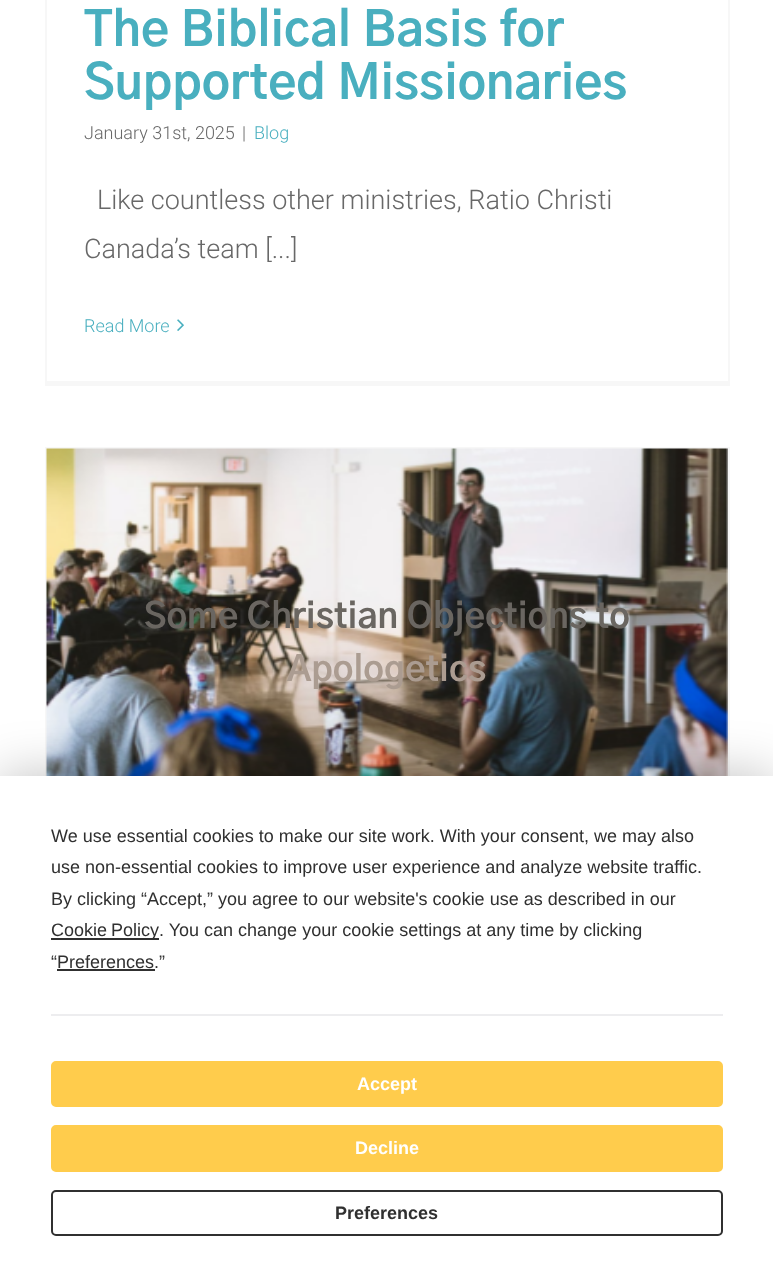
(async () => {
    const canvas = document.querySelector("canvas");
    canvas.width = 773;
    canvas.height = 1280;
    const context = canvas.getContext("2d");
    context.miterLimit = 4;
    context.fontKerning = "normal";
    function write(s, x, y, font, color) {
        context.font = font;
        context.fillStyle = color;
        context.fillText(s, x, y);
    }
    function block(x, y, w, h, color) {
        context.fillStyle = color;
        context.fillRect(x, y, w, h);
    }
    async function photo(src, x, y, w, h) {
        const img = new Image();
        img.src = src;
        await img.decode();
        context.drawImage(img, x, y, w, h);
    }

    block(0, 0, 773, 1280, "rgb(255, 255, 255)");
    block(728, 0, 2, 386, "rgb(247, 247, 247)");
    block(45, 381, 684, 5, "rgb(247, 247, 247)");
    block(45, 0, 2, 386, "rgb(247, 247, 247)");
    write("The Biblical Basis for", 84, 46, "bold 48px 'Gothic A1'", "rgb(73, 175, 191)");
    write("Supported Missionaries", 84, 99, "bold 48px 'Gothic A1'", "rgb(73, 175, 191)");
    write("January 31st, 2025", 84, 139, "300 18px Roboto", "rgb(104, 104, 104)");
    write("|", 242, 139, "300 18px Roboto", "rgb(104, 104, 104)");
    write("Blog", 254, 139, "300 18px Roboto", "rgb(73, 175, 191)");
    write("Like countless other ministries, Ratio Christi", 97, 209, "300 27px Roboto", "rgb(104, 104, 104)");
    write("Canada’s team [...]", 84, 258, "300 27px Roboto", "rgb(104, 104, 104)");
    write("Read More", 84, 332, "300 18px Roboto", "rgb(73, 175, 191)");
    await photo("media/1.png", 177, 319, 7, 12);
    block(45, 447, 684, 2, "rgb(247, 247, 247)");
    block(728, 447, 2, 329, "rgb(247, 247, 247)");
    block(45, 447, 2, 329, "rgb(247, 247, 247)");
    await photo("media/2.png", 46, 448, 682, 328);
    write("Some Christian Objections to", 144, 628, "bold 35.1px 'Gothic A1'", "rgb(106, 102, 97)");
    write("Apologetics", 287, 681, "bold 35.1px 'Gothic A1'", "rgb(171, 156, 145)");
    context.fillStyle = "rgba(0, 0, 0, 0.25)";
    context.filter = "blur(26px)";
    context.beginPath();
    context.rect(0, 776, 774, 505);
    context.fill();
    context.filter = "none";
    block(0, 776, 773, 504, "rgb(255, 255, 255)");
    write("We use essential cookies to make our site work. With your consent, we may also", 51, 842, "18px Liberation Sans", "rgb(48, 48, 48)");
    write("use non-essential cookies to improve user experience and analyze website traffic.", 51, 873, "18px Liberation Sans", "rgb(48, 48, 48)");
    write("By clicking “Accept,” you agree to our website's cookie use as described in our", 51, 905, "18px Liberation Sans", "rgb(48, 48, 48)");
    block(51, 938, 108, 2, "rgb(48, 48, 48)");
    context.wordSpacing = "-1px";
    write("Cookie Policy", 51, 936, "18px Liberation Sans", "rgb(48, 48, 48)");
    context.wordSpacing = "0px";
    write(". You can change your cookie settings at any time by clicking", 159, 936, "18px Liberation Sans", "rgb(48, 48, 48)");
    write("“Preferences.”", 51, 968, "18px Liberation Sans", "rgb(48, 48, 48)");
    block(57, 969, 98, 2, "rgb(48, 48, 48)");
    block(51, 1014, 672, 2, "rgb(237, 237, 239)");
    context.fillStyle = "rgb(255, 204, 76)";
    context.beginPath();
    context.roundRect(52, 1062, 670, 44, 4);
    context.fill();
    context.strokeStyle = "rgb(255, 204, 76)";
    context.lineWidth = 2;
    context.stroke();
    write("Accept", 357, 1090, "bold 18px Liberation Sans", "rgb(255, 255, 255)");
    context.fillStyle = "rgb(255, 204, 76)";
    context.beginPath();
    context.roundRect(52, 1126, 670, 45, 4);
    context.fill();
    context.stroke();
    write("Decline", 355, 1154, "bold 18px Liberation Sans", "rgb(255, 255, 255)");
    context.beginPath();
    context.roundRect(52, 1191, 670, 44, 4);
    context.strokeStyle = "rgb(48, 48, 48)";
    context.stroke();
    write("Preferences", 335, 1219, "bold 18px Liberation Sans", "rgb(48, 48, 48)");
})();
